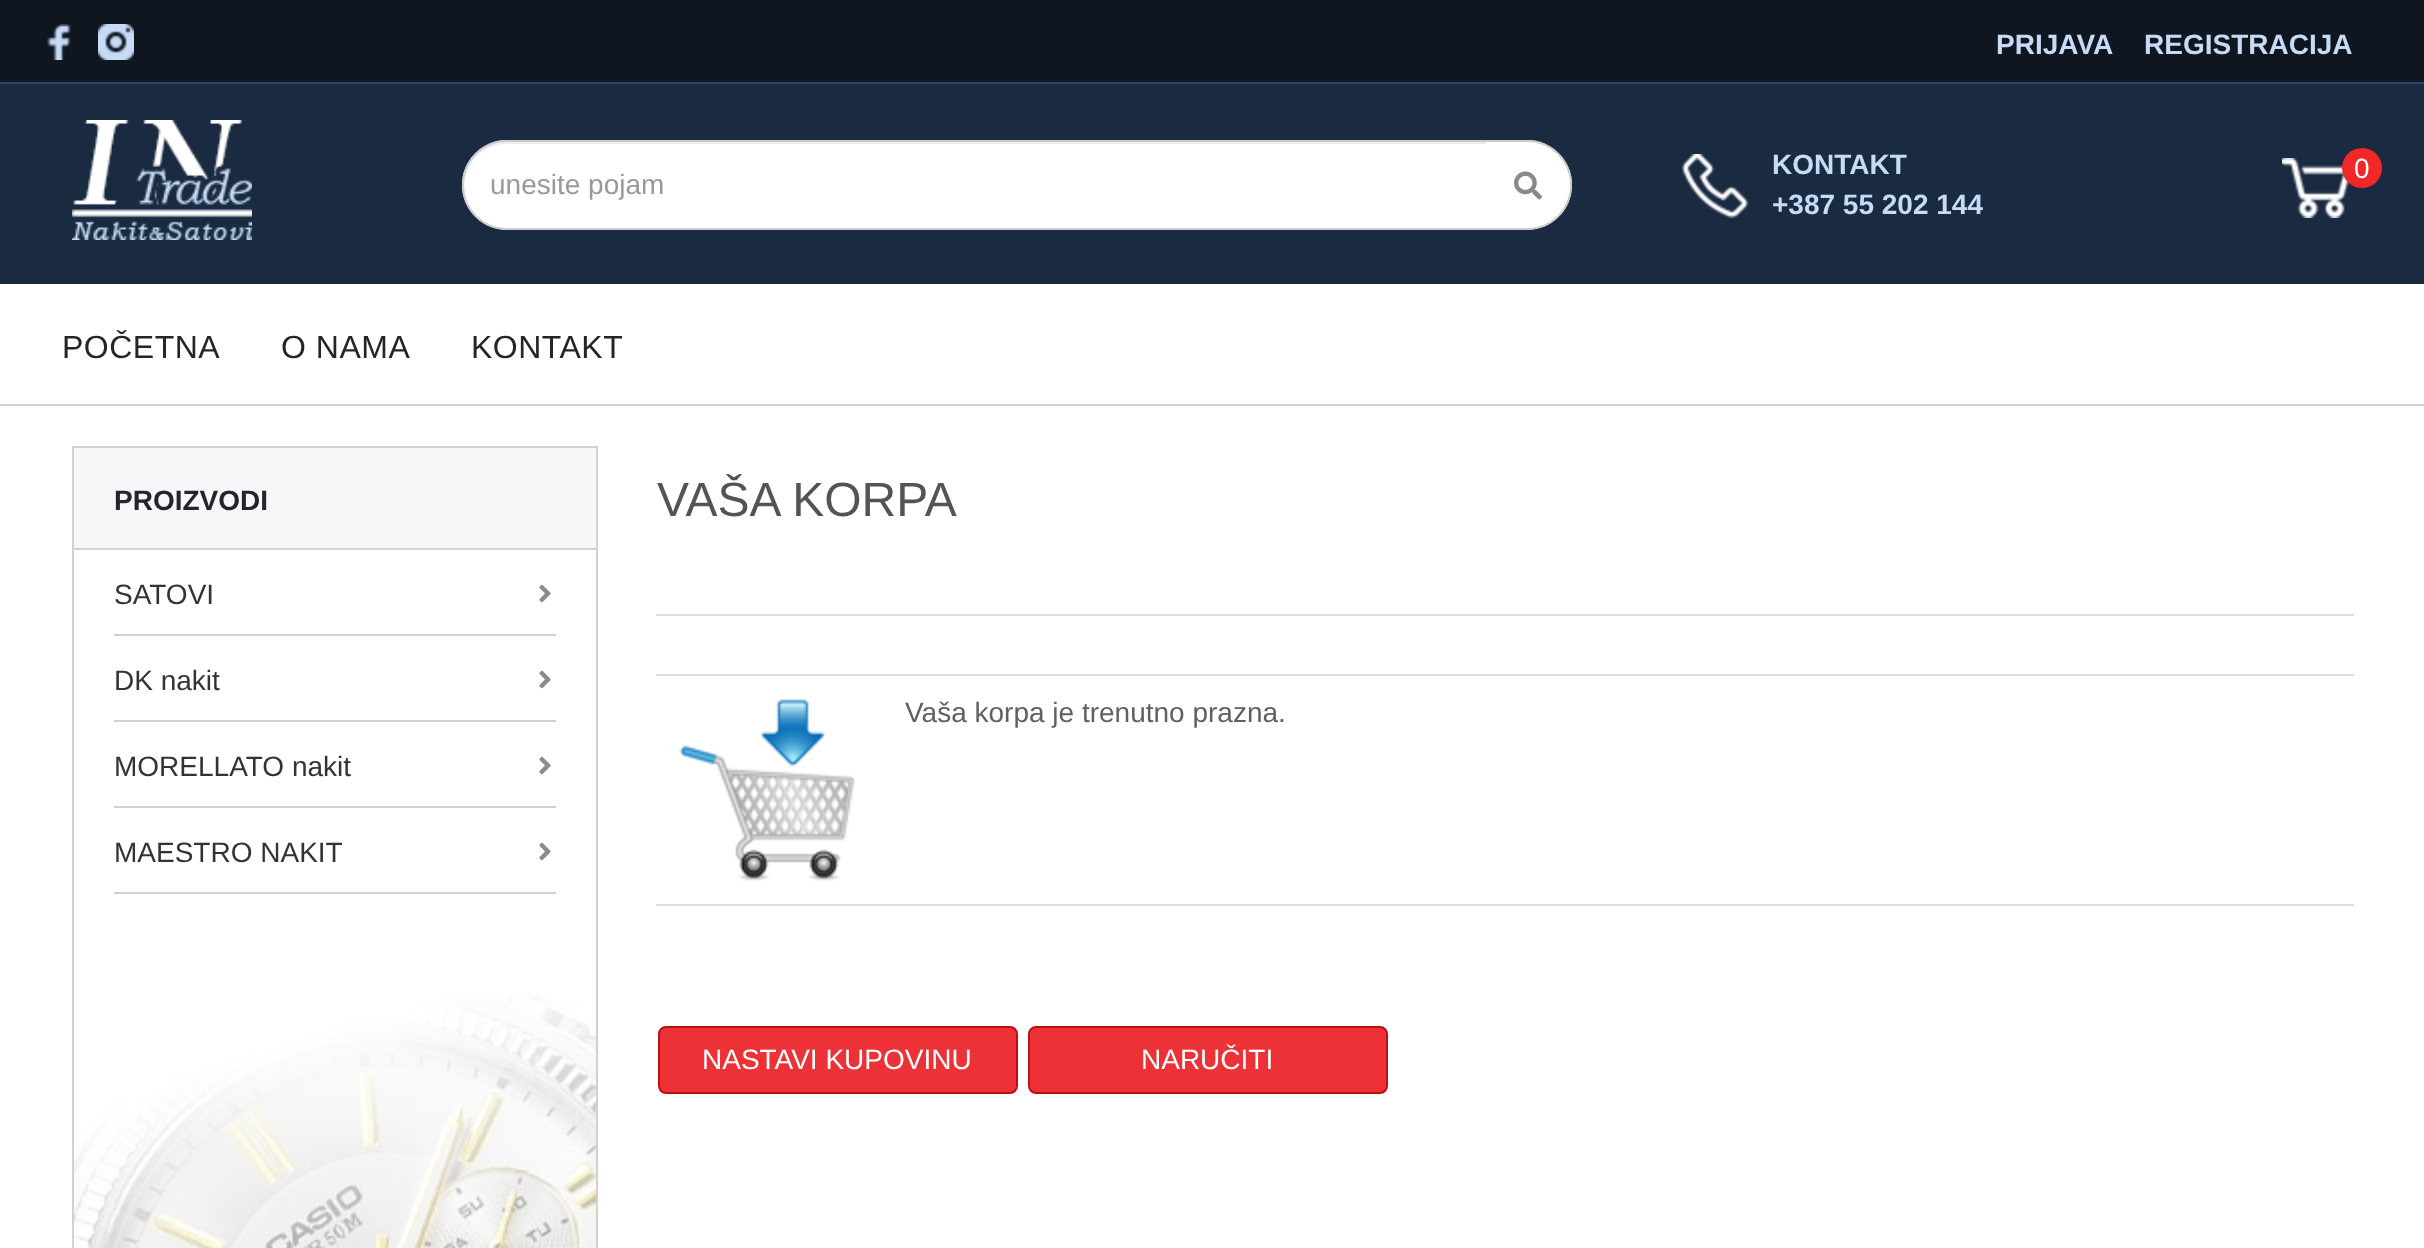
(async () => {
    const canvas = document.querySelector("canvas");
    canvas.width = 2424;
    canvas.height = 1248;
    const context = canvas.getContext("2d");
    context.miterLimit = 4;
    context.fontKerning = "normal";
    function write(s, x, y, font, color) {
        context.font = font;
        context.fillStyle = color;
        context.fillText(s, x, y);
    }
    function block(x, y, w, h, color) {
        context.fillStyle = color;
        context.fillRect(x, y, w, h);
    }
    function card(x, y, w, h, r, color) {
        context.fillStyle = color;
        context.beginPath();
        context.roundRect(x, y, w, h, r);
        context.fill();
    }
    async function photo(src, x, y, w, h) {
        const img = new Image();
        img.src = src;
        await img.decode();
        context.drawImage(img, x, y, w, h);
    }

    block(0, 0, 2424, 1248, "rgb(255, 255, 255)");
    block(0, 0, 2424, 82, "rgb(16, 22, 31)");
    block(0, 82, 2424, 2, "rgb(40, 70, 116)");
    await photo("media/1.png", 42, 24, 36, 36);
    await photo("media/2.png", 98, 24, 36, 36);
    write("PRIJAVA", 1996, 54, "bold 28px Liberation Sans", "rgb(199, 219, 247)");
    write("REGISTRACIJA", 2144, 54, "bold 28px Liberation Sans", "rgb(199, 219, 247)");
    block(0, 84, 2424, 200, "rgb(25, 42, 65)");
    await photo("media/3.png", 72, 120, 180, 120);
    await photo("media/4.png", 1682, 154, 66, 64);
    write("KONTAKT", 1772, 174, "bold 28px Liberation Sans", "rgb(199, 219, 247)");
    write("+387 55 202 144", 1772, 214, "bold 28px Liberation Sans", "rgb(199, 219, 247)");
    await photo("media/5.png", 2282, 158, 67, 60);
    context.fillStyle = "rgb(240, 40, 40)";
    context.beginPath();
    context.arc(2362, 168, 20, 0, Math.PI * 2);
    context.fill();
    write("0", 2354, 178, "28px Liberation Sans", "rgb(255, 255, 255)");
    card(462, 140, 1110, 90, 45, "rgb(255, 255, 255)");
    context.fillStyle = "rgb(236, 236, 236)";
    context.beginPath();
    context.moveTo(507, 144);
    context.lineTo(1527, 144);
    context.bezierCurveTo(1551, 144, 1569, 162, 1570, 186);
    context.bezierCurveTo(1570, 166, 1556, 147, 1536, 143);
    context.lineTo(1527, 142);
    context.lineTo(507, 142);
    context.bezierCurveTo(483, 142, 463, 162, 464, 186);
    context.bezierCurveTo(465, 162, 483, 144, 507, 144);
    context.closePath();
    context.fill();
    context.beginPath();
    context.roundRect(463, 141, 1108, 88, 44);
    context.strokeStyle = "rgb(204, 204, 204)";
    context.lineWidth = 2;
    context.stroke();
    write("unesite pojam", 490, 194, "28px Liberation Sans", "rgb(153, 153, 153)");
    context.fillStyle = "rgb(255, 255, 255)";
    context.beginPath();
    context.roundRect(1484, 142, 86, 86, [6, 43, 43, 6]);
    context.fill();
    await photo("media/6.png", 1514, 171, 28, 29);
    block(0, 404, 2424, 2, "rgb(208, 208, 208)");
    context.letterSpacing = "0.5px";
    write("POČETNA", 62, 358, "32px Liberation Sans", "rgb(34, 37, 41)");
    write("O NAMA", 281, 358, "32px Liberation Sans", "rgb(34, 37, 41)");
    write("KONTAKT", 471, 358, "32px Liberation Sans", "rgb(34, 37, 41)");
    await photo("media/7.png", 74, 995, 522, 253);
    context.strokeStyle = "rgb(209, 209, 209)";
    context.strokeRect(73, 447, 524, 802);
    block(74, 448, 522, 100, "rgb(246, 247, 249)");
    block(74, 548, 522, 2, "rgb(209, 209, 209)");
    context.letterSpacing = "0px";
    write("PROIZVODI", 114, 510, "bold 28px Liberation Sans", "rgb(34, 37, 41)");
    block(114, 634, 442, 2, "rgb(209, 209, 209)");
    write("SATOVI", 114, 604, "28px Liberation Sans", "rgb(51, 51, 51)");
    await photo("media/8.png", 539, 584, 12, 19);
    block(114, 720, 442, 2, "rgb(209, 209, 209)");
    write("DK nakit", 114, 690, "28px Liberation Sans", "rgb(51, 51, 51)");
    await photo("media/8.png", 539, 670, 12, 19);
    block(114, 806, 442, 2, "rgb(209, 209, 209)");
    write("MORELLATO nakit", 114, 776, "28px Liberation Sans", "rgb(51, 51, 51)");
    await photo("media/8.png", 539, 756, 12, 19);
    block(114, 892, 442, 2, "rgb(209, 209, 209)");
    write("MAESTRO NAKIT", 114, 862, "28px Liberation Sans", "rgb(51, 51, 51)");
    await photo("media/8.png", 539, 842, 12, 19);
    write("VAŠA KORPA", 657, 516, "48px Liberation Sans", "rgb(85, 84, 84)");
    block(656, 614, 1698, 2, "rgb(221, 221, 221)");
    block(656, 674, 1698, 2, "rgb(221, 221, 221)");
    await photo("media/9.png", 679, 699, 176, 182);
    write("Vaša korpa je trenutno prazna.", 905, 722, "28px Liberation Sans", "rgb(96, 96, 96)");
    block(656, 904, 1698, 2, "rgb(221, 221, 221)");
    context.fillStyle = "rgb(236, 50, 55)";
    context.beginPath();
    context.roundRect(659, 1027, 358, 66, 7);
    context.fill();
    context.strokeStyle = "rgb(187, 17, 21)";
    context.stroke();
    write("NASTAVI KUPOVINU", 702, 1069, "28px Liberation Sans", "rgb(255, 255, 255)");
    context.fillStyle = "rgb(236, 50, 55)";
    context.beginPath();
    context.roundRect(1029, 1027, 358, 66, 7);
    context.fill();
    context.stroke();
    write("NARUČITI", 1141, 1069, "28px Liberation Sans", "rgb(255, 255, 255)");
})();
